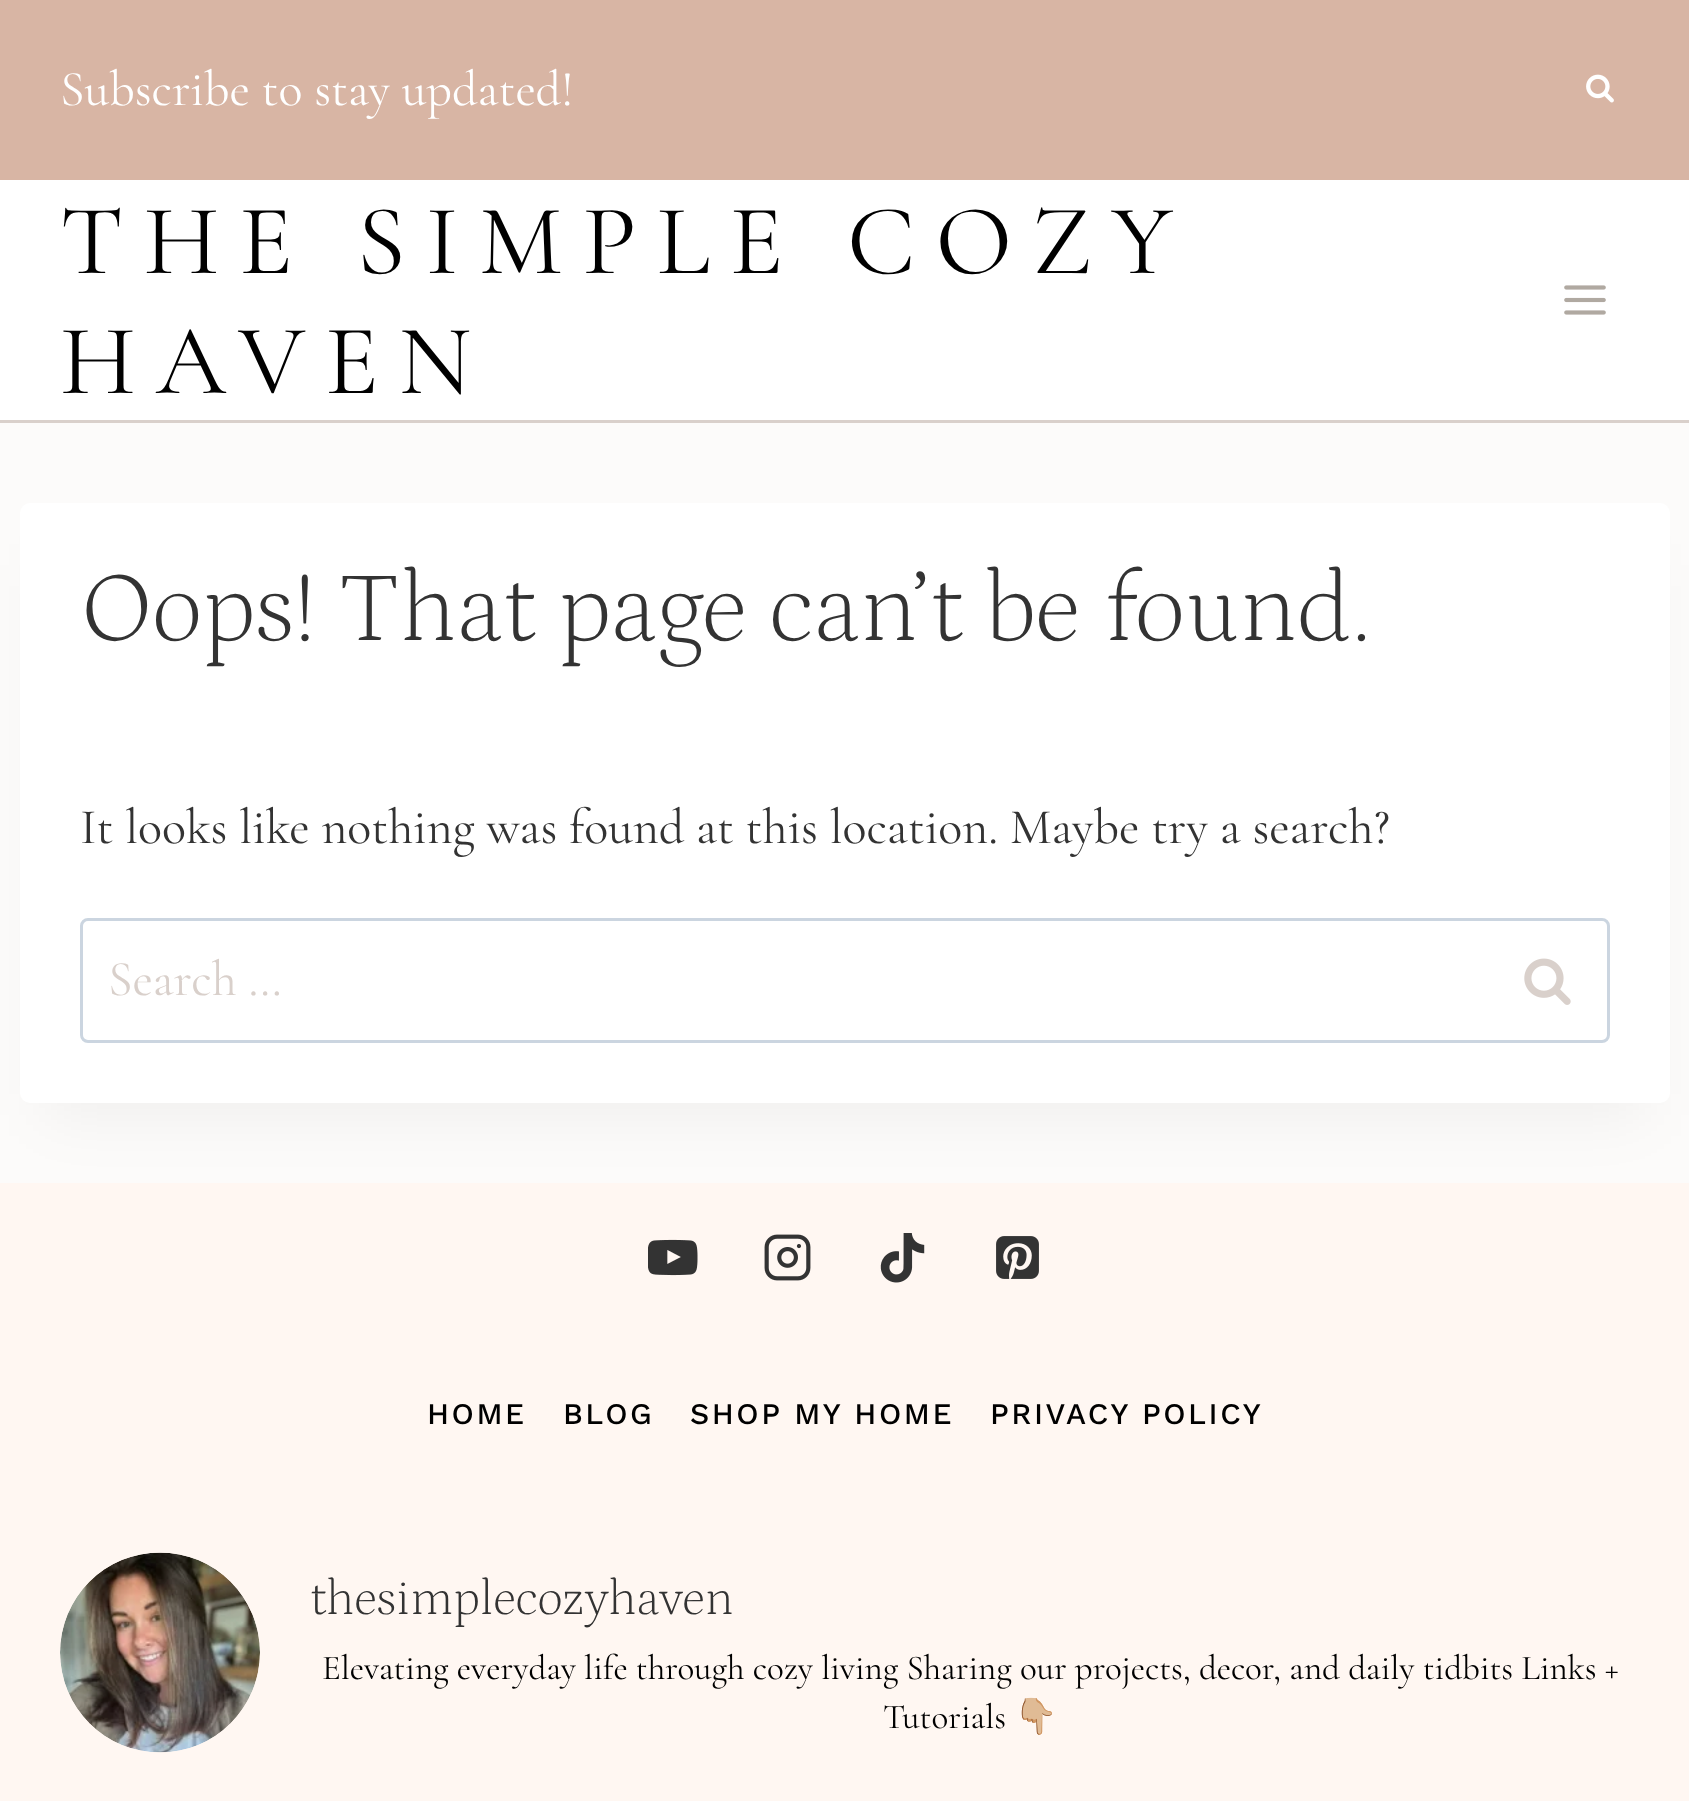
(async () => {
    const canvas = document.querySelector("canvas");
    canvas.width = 1689;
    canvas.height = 1801;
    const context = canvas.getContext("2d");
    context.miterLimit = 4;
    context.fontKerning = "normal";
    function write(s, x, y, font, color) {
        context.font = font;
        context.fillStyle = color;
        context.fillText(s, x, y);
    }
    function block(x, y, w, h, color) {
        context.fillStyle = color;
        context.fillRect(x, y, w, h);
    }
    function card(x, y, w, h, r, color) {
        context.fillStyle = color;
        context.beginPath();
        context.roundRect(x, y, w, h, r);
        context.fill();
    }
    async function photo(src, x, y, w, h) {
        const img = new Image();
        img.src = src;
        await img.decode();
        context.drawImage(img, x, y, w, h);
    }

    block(0, 0, 1689, 1801, "rgb(252, 251, 250)");
    block(0, 180, 1689, 240, "rgb(255, 255, 255)");
    block(0, 0, 1689, 180, "rgb(216, 181, 164)");
    write("Subscribe to stay updated!", 60, 105, "50px Cormorant Garamond", "rgb(255, 255, 255)");
    await photo("media/1.png", 1586, 74, 28, 29);
    block(0, 420, 1689, 3, "rgb(217, 208, 203)");
    context.letterSpacing = "20px";
    write("THE SIMPLE COZY", 60, 273, "100px Cormorant Garamond", "rgb(0, 0, 0)");
    write("HAVEN", 60, 393, "100px Cormorant Garamond", "rgb(0, 0, 0)");
    await photo("media/2.png", 1564, 285, 42, 30);
    block(0, 1183, 1689, 618, "rgb(255, 247, 242)");
    context.fillStyle = "rgba(0, 0, 0, 0.05)";
    context.filter = "blur(31px)";
    context.beginPath();
    context.rect(45, 565, 1600, 550);
    context.fill();
    context.filter = "none";
    card(20, 503, 1650, 600, 10, "rgb(255, 255, 255)");
    context.letterSpacing = "0px";
    write("Oops! That page can’t be found.", 80, 640, "200 100px Petrona", "rgb(51, 51, 51)");
    write("It looks like nothing was found at this location. Maybe try a search?", 80, 843, "50px Cormorant Garamond", "rgb(51, 51, 51)");
    context.beginPath();
    context.roundRect(81.5, 919.5, 1527, 122, 6.5);
    context.strokeStyle = "rgb(203, 213, 224)";
    context.lineWidth = 3;
    context.stroke();
    write("Search …", 108, 995, "50px Cormorant Garamond", "rgb(217, 208, 203)");
    await photo("media/3.png", 1524, 958, 47, 47);
    await photo("media/4.png", 648, 1239, 50, 37);
    await photo("media/5.png", 764, 1234, 47, 47);
    await photo("media/6.png", 880, 1233, 45, 50);
    await photo("media/7.png", 996, 1236, 43, 43);
    context.letterSpacing = "2.5px";
    write("HOME", 427, 1424, "500 30px Work Sans", "rgb(0, 0, 0)");
    write("BLOG", 563, 1424, "500 30px Work Sans", "rgb(0, 0, 0)");
    write("SHOP MY HOME", 690, 1424, "500 30px Work Sans", "rgb(0, 0, 0)");
    write("PRIVACY POLICY", 990, 1424, "500 30px Work Sans", "rgb(0, 0, 0)");
    await photo("media/8.png", 60, 1552, 200, 201);
    context.letterSpacing = "0px";
    write("thesimplecozyhaven", 310, 1614, "200 50px Petrona", "rgb(51, 51, 51)");
    write("Elevating everyday life through cozy living Sharing our projects, decor, and daily tidbits Links +", 322, 1679, "35px Cormorant Garamond", "rgb(0, 0, 0)");
    write("Tutorials", 883, 1728, "35px Cormorant Garamond", "rgb(0, 0, 0)");
    write("👇🏼", 1014, 1728, "35px Noto Color Emoji", "rgb(0, 0, 0)");
})();
